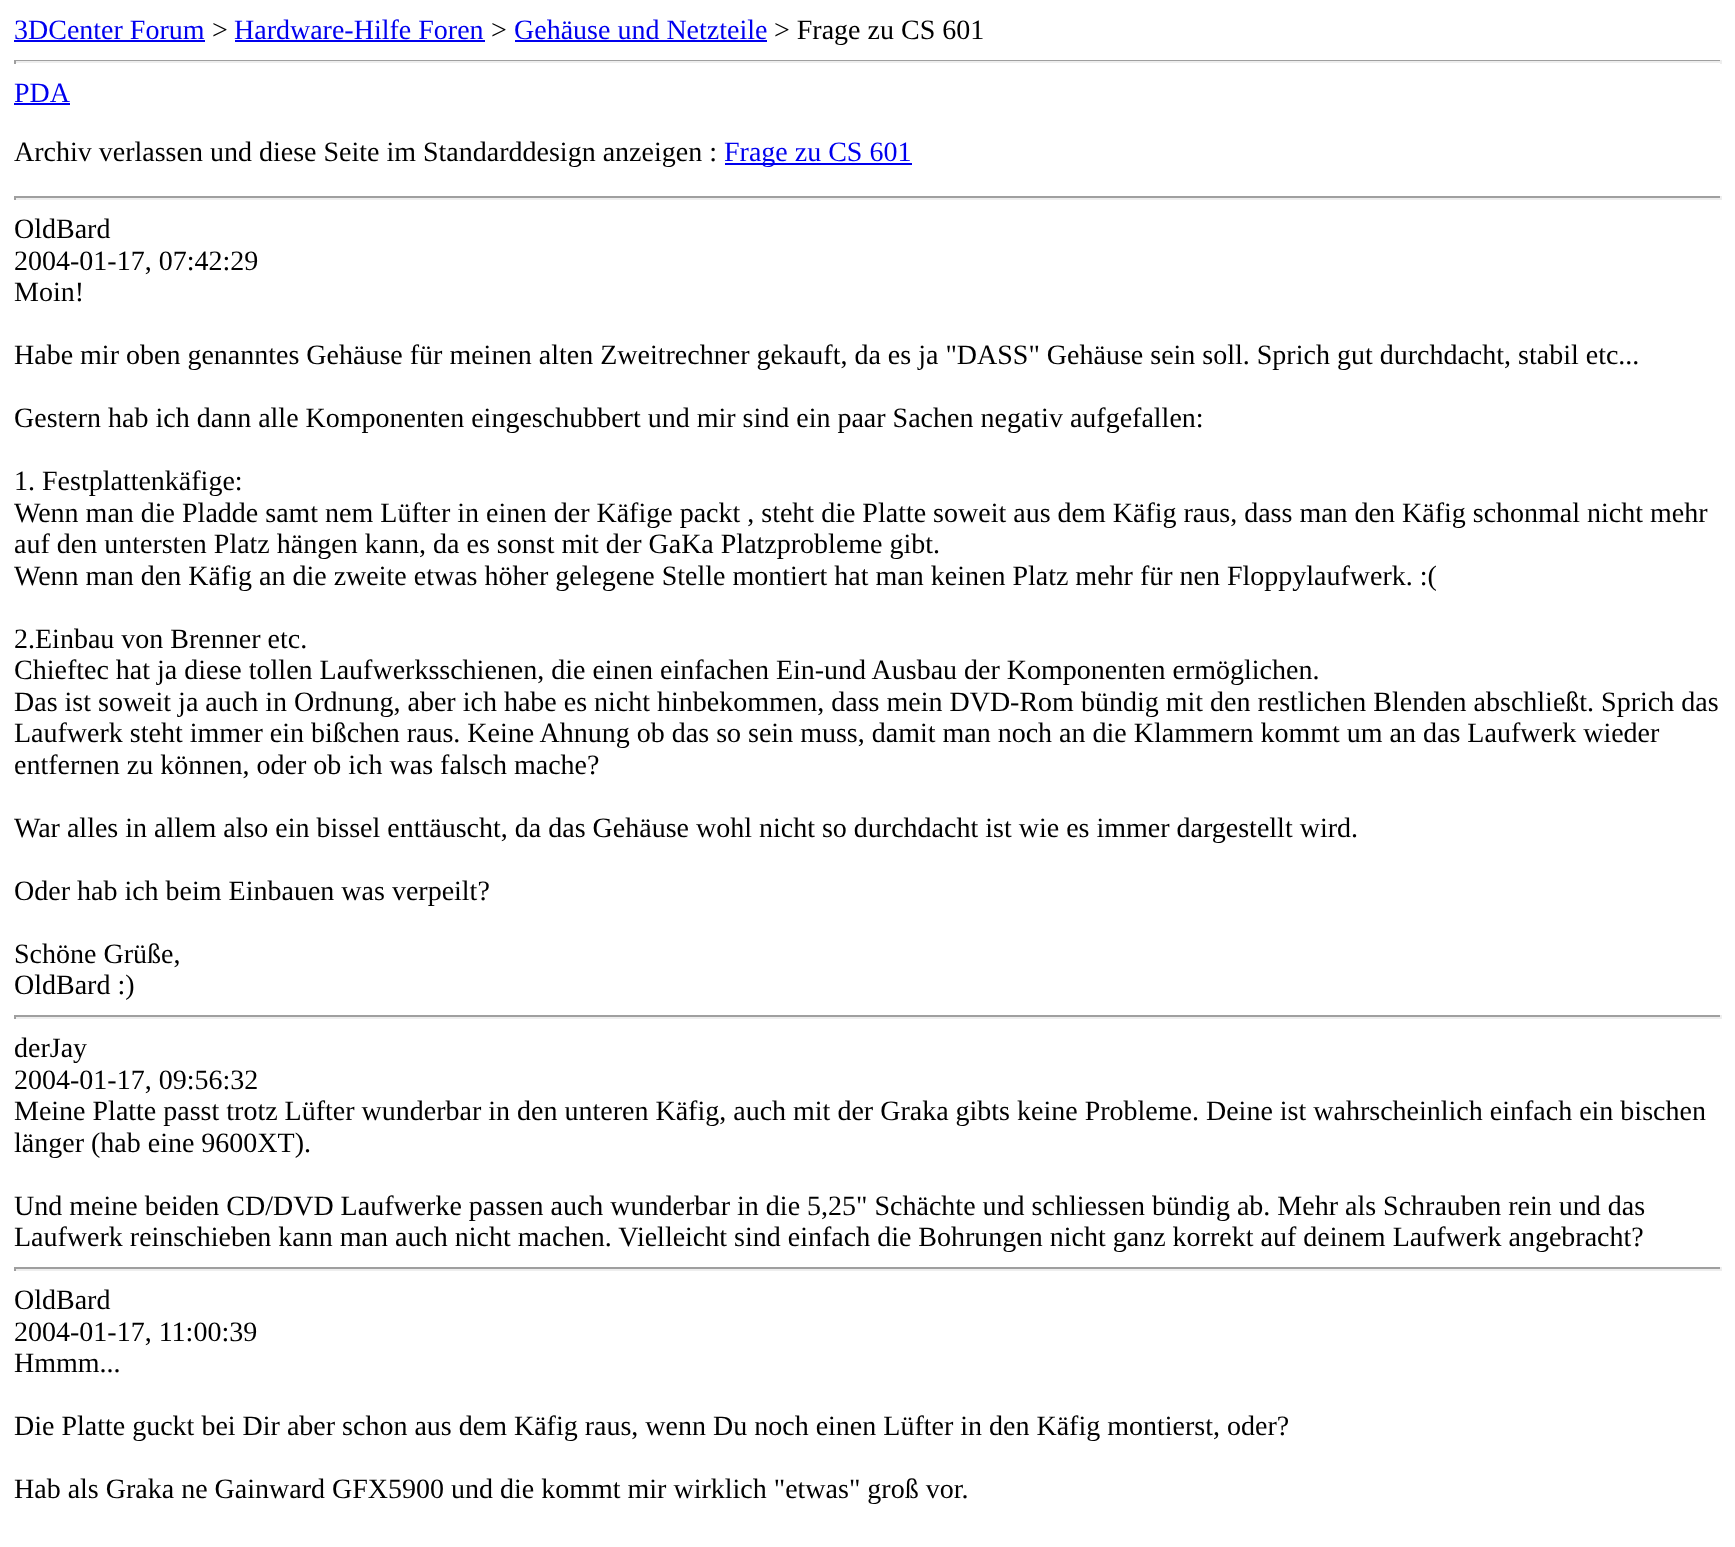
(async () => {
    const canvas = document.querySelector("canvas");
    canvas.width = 1735;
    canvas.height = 1547;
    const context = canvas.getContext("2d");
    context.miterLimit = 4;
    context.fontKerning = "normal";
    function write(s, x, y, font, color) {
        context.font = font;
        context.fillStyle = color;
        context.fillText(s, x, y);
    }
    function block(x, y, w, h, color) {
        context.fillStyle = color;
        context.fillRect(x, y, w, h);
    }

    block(0, 0, 1735, 1547, "rgb(255, 255, 255)");
    write("3DCenter Forum", 14, 39, "28px Liberation Serif", "rgb(0, 0, 238)");
    block(14, 40, 191, 2, "rgb(0, 0, 238)");
    write(">", 212, 39, "28px Liberation Serif", "rgb(0, 0, 0)");
    write("Hardware-Hilfe Foren", 234, 39, "28px Liberation Serif", "rgb(0, 0, 238)");
    block(235, 40, 250, 2, "rgb(0, 0, 238)");
    write(">", 491, 39, "28px Liberation Serif", "rgb(0, 0, 0)");
    write("Gehäuse und Netzteile", 514, 39, "28px Liberation Serif", "rgb(0, 0, 238)");
    block(515, 40, 252, 2, "rgb(0, 0, 238)");
    write("> Frage zu CS 601", 774, 39, "28px Liberation Serif", "rgb(0, 0, 0)");
    block(14, 60, 1708, 1, "rgb(159, 159, 159)");
    block(1720, 60, 2, 4, "rgb(238, 238, 238)");
    block(14, 61, 1708, 2, "rgb(238, 238, 238)");
    block(14, 60, 2, 4, "rgb(159, 159, 159)");
    write("PDA", 14, 102, "28px Liberation Serif", "rgb(0, 0, 238)");
    block(14, 103, 56, 2, "rgb(0, 0, 238)");
    write("Archiv verlassen und diese Seite im Standarddesign anzeigen :", 14, 161, "28px Liberation Serif", "rgb(0, 0, 0)");
    block(725, 163, 187, 2, "rgb(0, 0, 238)");
    write("Frage zu CS 601", 724, 161, "28px Liberation Serif", "rgb(0, 0, 238)");
    block(14, 196, 1708, 2, "rgb(159, 159, 159)");
    block(1720, 196, 2, 4, "rgb(238, 238, 238)");
    block(14, 198, 1708, 2, "rgb(238, 238, 238)");
    block(14, 196, 2, 4, "rgb(159, 159, 159)");
    write("OldBard", 14, 238, "28px Liberation Serif", "rgb(0, 0, 0)");
    write("2004-01-17, 07:42:29", 14, 270, "28px Liberation Serif", "rgb(0, 0, 0)");
    write("Moin!", 14, 301, "28px Liberation Serif", "rgb(0, 0, 0)");
    write("Habe mir oben genanntes Gehäuse für meinen alten Zweitrechner gekauft, da es ja \"DASS\" Gehäuse sein soll. Sprich gut durchdacht, stabil etc...", 14, 364, "28px Liberation Serif", "rgb(0, 0, 0)");
    write("Gestern hab ich dann alle Komponenten eingeschubbert und mir sind ein paar Sachen negativ aufgefallen:", 14, 427, "28px Liberation Serif", "rgb(0, 0, 0)");
    write("1. Festplattenkäfige:", 14, 490, "28px Liberation Serif", "rgb(0, 0, 0)");
    write("Wenn man die Pladde samt nem Lüfter in einen der Käfige packt , steht die Platte soweit aus dem Käfig raus, dass man den Käfig schonmal nicht mehr", 14, 522, "28px Liberation Serif", "rgb(0, 0, 0)");
    write("auf den untersten Platz hängen kann, da es sonst mit der GaKa Platzprobleme gibt.", 14, 553, "28px Liberation Serif", "rgb(0, 0, 0)");
    write("Wenn man den Käfig an die zweite etwas höher gelegene Stelle montiert hat man keinen Platz mehr für nen Floppylaufwerk. :(", 14, 585, "28px Liberation Serif", "rgb(0, 0, 0)");
    write("2.Einbau von Brenner etc.", 14, 648, "28px Liberation Serif", "rgb(0, 0, 0)");
    write("Chieftec hat ja diese tollen Laufwerksschienen, die einen einfachen Ein-und Ausbau der Komponenten ermöglichen.", 14, 679, "28px Liberation Serif", "rgb(0, 0, 0)");
    write("Das ist soweit ja auch in Ordnung, aber ich habe es nicht hinbekommen, dass mein DVD-Rom bündig mit den restlichen Blenden abschließt. Sprich das", 14, 711, "28px Liberation Serif", "rgb(0, 0, 0)");
    write("Laufwerk steht immer ein bißchen raus. Keine Ahnung ob das so sein muss, damit man noch an die Klammern kommt um an das Laufwerk wieder", 14, 742, "28px Liberation Serif", "rgb(0, 0, 0)");
    write("entfernen zu können, oder ob ich was falsch mache?", 14, 774, "28px Liberation Serif", "rgb(0, 0, 0)");
    write("War alles in allem also ein bissel enttäuscht, da das Gehäuse wohl nicht so durchdacht ist wie es immer dargestellt wird.", 14, 837, "28px Liberation Serif", "rgb(0, 0, 0)");
    write("Oder hab ich beim Einbauen was verpeilt?", 14, 900, "28px Liberation Serif", "rgb(0, 0, 0)");
    write("Schöne Grüße,", 14, 963, "28px Liberation Serif", "rgb(0, 0, 0)");
    write("OldBard :)", 14, 994, "28px Liberation Serif", "rgb(0, 0, 0)");
    block(14, 1015, 1708, 2, "rgb(159, 159, 159)");
    block(1720, 1015, 2, 4, "rgb(238, 238, 238)");
    block(14, 1017, 1708, 2, "rgb(238, 238, 238)");
    block(14, 1015, 2, 4, "rgb(159, 159, 159)");
    write("derJay", 14, 1057, "28px Liberation Serif", "rgb(0, 0, 0)");
    write("2004-01-17, 09:56:32", 14, 1089, "28px Liberation Serif", "rgb(0, 0, 0)");
    write("Meine Platte passt trotz Lüfter wunderbar in den unteren Käfig, auch mit der Graka gibts keine Probleme. Deine ist wahrscheinlich einfach ein bischen", 14, 1120, "28px Liberation Serif", "rgb(0, 0, 0)");
    write("länger (hab eine 9600XT).", 14, 1152, "28px Liberation Serif", "rgb(0, 0, 0)");
    write("Und meine beiden CD/DVD Laufwerke passen auch wunderbar in die 5,25\" Schächte und schliessen bündig ab. Mehr als Schrauben rein und das", 14, 1215, "28px Liberation Serif", "rgb(0, 0, 0)");
    write("Laufwerk reinschieben kann man auch nicht machen. Vielleicht sind einfach die Bohrungen nicht ganz korrekt auf deinem Laufwerk angebracht?", 14, 1246, "28px Liberation Serif", "rgb(0, 0, 0)");
    block(14, 1267, 1708, 2, "rgb(159, 159, 159)");
    block(1720, 1267, 2, 4, "rgb(238, 238, 238)");
    block(14, 1269, 1708, 2, "rgb(238, 238, 238)");
    block(14, 1267, 2, 4, "rgb(159, 159, 159)");
    write("OldBard", 14, 1309, "28px Liberation Serif", "rgb(0, 0, 0)");
    write("2004-01-17, 11:00:39", 14, 1341, "28px Liberation Serif", "rgb(0, 0, 0)");
    write("Hmmm...", 14, 1372, "28px Liberation Serif", "rgb(0, 0, 0)");
    write("Die Platte guckt bei Dir aber schon aus dem Käfig raus, wenn Du noch einen Lüfter in den Käfig montierst, oder?", 14, 1435, "28px Liberation Serif", "rgb(0, 0, 0)");
    write("Hab als Graka ne Gainward GFX5900 und die kommt mir wirklich \"etwas\" groß vor.", 14, 1498, "28px Liberation Serif", "rgb(0, 0, 0)");
})();
